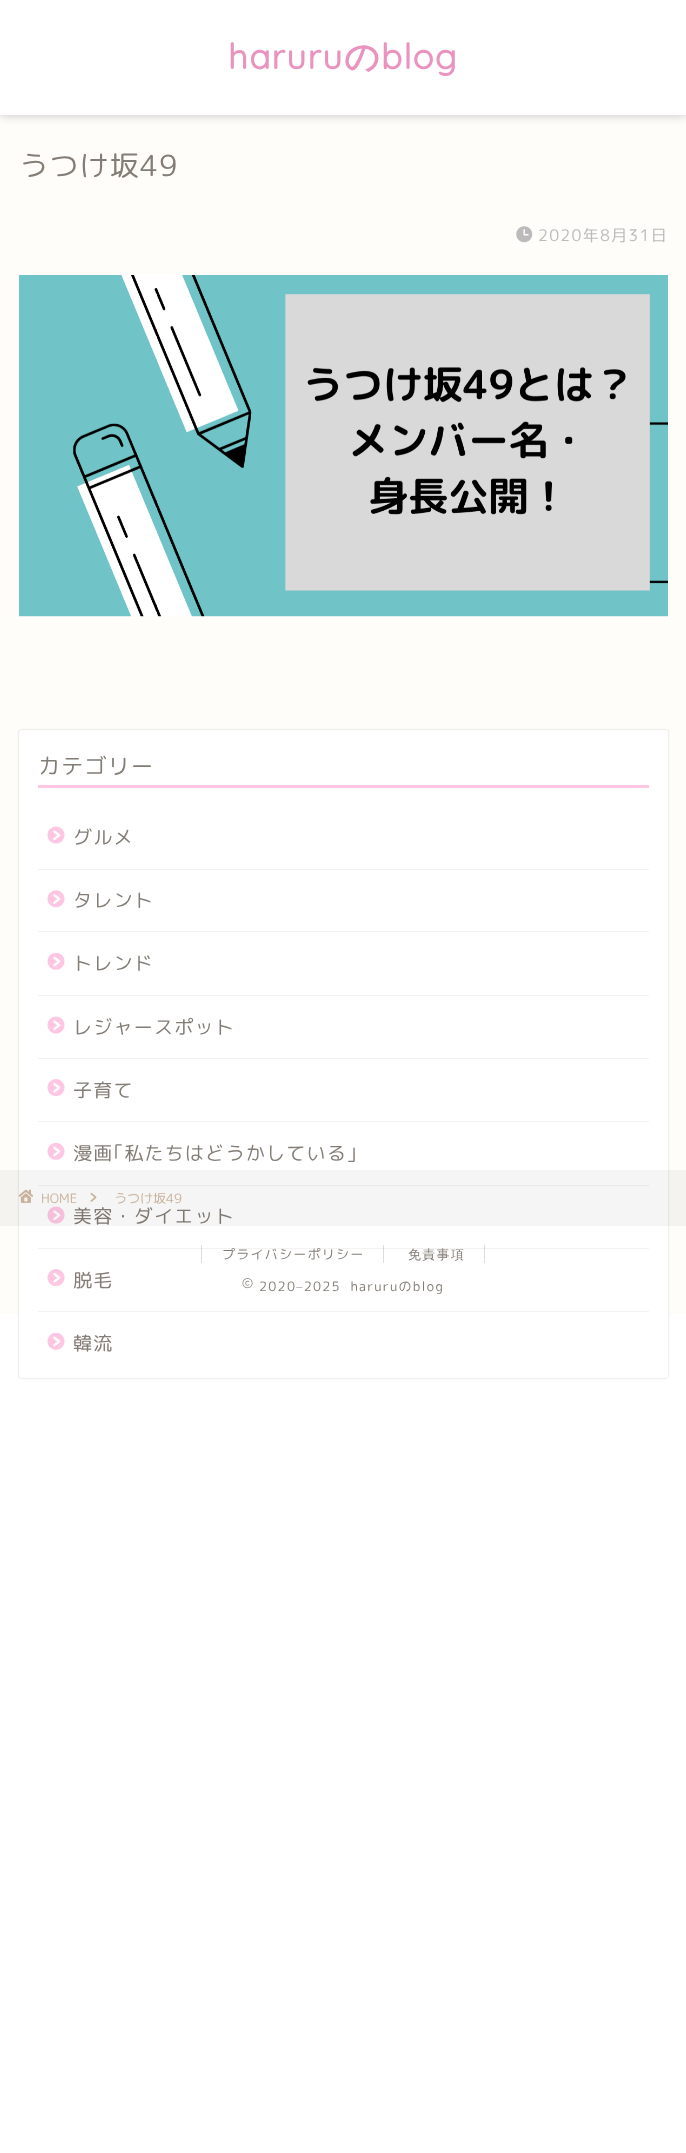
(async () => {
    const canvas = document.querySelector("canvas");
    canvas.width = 686;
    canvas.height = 2153;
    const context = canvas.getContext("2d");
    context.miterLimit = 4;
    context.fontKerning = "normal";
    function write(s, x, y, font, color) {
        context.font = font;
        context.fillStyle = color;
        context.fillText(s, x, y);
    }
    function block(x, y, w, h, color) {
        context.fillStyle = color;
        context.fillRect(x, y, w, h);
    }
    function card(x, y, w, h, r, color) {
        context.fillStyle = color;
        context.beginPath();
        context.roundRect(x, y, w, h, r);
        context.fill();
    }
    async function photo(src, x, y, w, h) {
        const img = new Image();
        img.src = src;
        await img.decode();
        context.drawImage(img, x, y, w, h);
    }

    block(0, 0, 686, 2153, "rgb(255, 255, 255)");
    block(0, 115, 686, 1200, "rgb(255, 253, 249)");
    context.fillStyle = "rgb(204, 204, 204)";
    context.filter = "blur(5px)";
    context.beginPath();
    context.rect(0, 1, 686, 115);
    context.fill();
    context.filter = "none";
    block(0, 0, 686, 115, "rgb(255, 255, 255)");
    context.letterSpacing = "1.25px";
    write("haruru", 228, 69, "bold 35px Quicksand", "rgb(234, 147, 191)");
    write("の", 344, 69, "bold 35px WenQuanYi Zen Hei", "rgb(234, 147, 191)");
    write("blog", 381, 69, "bold 35px Quicksand", "rgb(234, 147, 191)");
    write("うつけ坂49", 19, 176, "29px 'Rounded Mplus 1c'", "rgb(132, 125, 118)");
    await photo("media/1.png", 516, 226, 17, 17);
    write("2020年8月31日", 538, 241, "16px 'Rounded Mplus 1c'", "rgb(187, 187, 187)");
    await photo("media/2.png", 19, 275, 649, 342);
    context.fillStyle = "rgba(0, 0, 0, 0.18)";
    context.filter = "blur(1px)";
    context.beginPath();
    context.roundRect(19, 730, 649, 648, 2.5);
    context.fill();
    context.filter = "none";
    card(19, 730, 649, 648, 2.5, "rgb(255, 255, 255)");
    block(38, 785, 611, 3, "rgb(255, 198, 228)");
    write("カテゴリー", 38, 774, "22px 'Rounded Mplus 1c'", "rgb(132, 125, 118)");
    block(38, 869, 611, 1, "rgb(242, 242, 242)");
    await photo("media/3.png", 47, 826, 18, 18);
    write("グルメ", 73, 844, "19px 'Rounded Mplus 1c'", "rgb(132, 125, 118)");
    block(38, 931, 611, 1, "rgb(242, 242, 242)");
    await photo("media/4.png", 47, 890, 18, 18);
    write("タレント", 73, 907, "19px 'Rounded Mplus 1c'", "rgb(132, 125, 118)");
    block(38, 995, 611, 1, "rgb(242, 242, 242)");
    await photo("media/5.png", 47, 952, 18, 18);
    write("トレンド", 73, 970, "19px 'Rounded Mplus 1c'", "rgb(132, 125, 118)");
    block(38, 1058, 611, 1, "rgb(242, 242, 242)");
    await photo("media/3.png", 47, 1016, 18, 18);
    write("レジャースポット", 73, 1034, "19px 'Rounded Mplus 1c'", "rgb(132, 125, 118)");
    block(38, 1121, 611, 1, "rgb(242, 242, 242)");
    await photo("media/6.png", 47, 1079, 18, 17);
    write("子育て", 73, 1097, "19px 'Rounded Mplus 1c'", "rgb(132, 125, 118)");
    block(38, 1185, 611, 1, "rgb(242, 242, 242)");
    await photo("media/5.png", 47, 1142, 18, 18);
    write("漫画｢私たちはどうかしている｣", 73, 1160, "19px 'Rounded Mplus 1c'", "rgb(132, 125, 118)");
    block(383, 1245, 1, 18, "rgb(221, 221, 221)");
    block(201, 1245, 1, 18, "rgb(221, 221, 221)");
    block(484, 1245, 1, 18, "rgb(221, 221, 221)");
    block(38, 1248, 611, 1, "rgba(0, 0, 0, 0.05)");
    await photo("media/3.png", 47, 1206, 18, 18);
    write("美容・ダイエット", 73, 1223, "19px 'Rounded Mplus 1c'", "rgb(132, 125, 118)");
    block(38, 1311, 611, 1, "rgb(242, 242, 242)");
    await photo("media/6.png", 47, 1269, 18, 17);
    write("脱毛", 73, 1287, "19px 'Rounded Mplus 1c'", "rgb(132, 125, 118)");
    await photo("media/5.png", 47, 1332, 18, 18);
    write("韓流", 73, 1350, "19px 'Rounded Mplus 1c'", "rgb(132, 125, 118)");
    block(0, 1170, 686, 56, "rgba(0, 0, 0, 0.04)");
    await photo("media/7.png", 18, 1189, 15, 14);
    context.letterSpacing = "0px";
    write("HOME", 41, 1203, "13px 'Rounded Mplus 1c'", "rgb(201, 178, 155)");
    await photo("media/8.png", 90, 1192, 7, 10);
    write("うつけ坂49", 114, 1203, "13px 'Rounded Mplus 1c'", "rgb(201, 178, 155)");
    context.letterSpacing = "1.25px";
    write("プライバシーポリシー", 222, 1259, "13px 'Rounded Mplus 1c'", "rgb(132, 125, 118)");
    write("免責事項", 408, 1259, "500 13px WenQuanYi Zen Hei", "rgb(132, 125, 118)");
    await photo("media/9.png", 242, 1278, 11, 11);
    write("2020–2025  haruruのblog", 259, 1291, "13px 'Rounded Mplus 1c'", "rgb(132, 125, 118)");
})();
